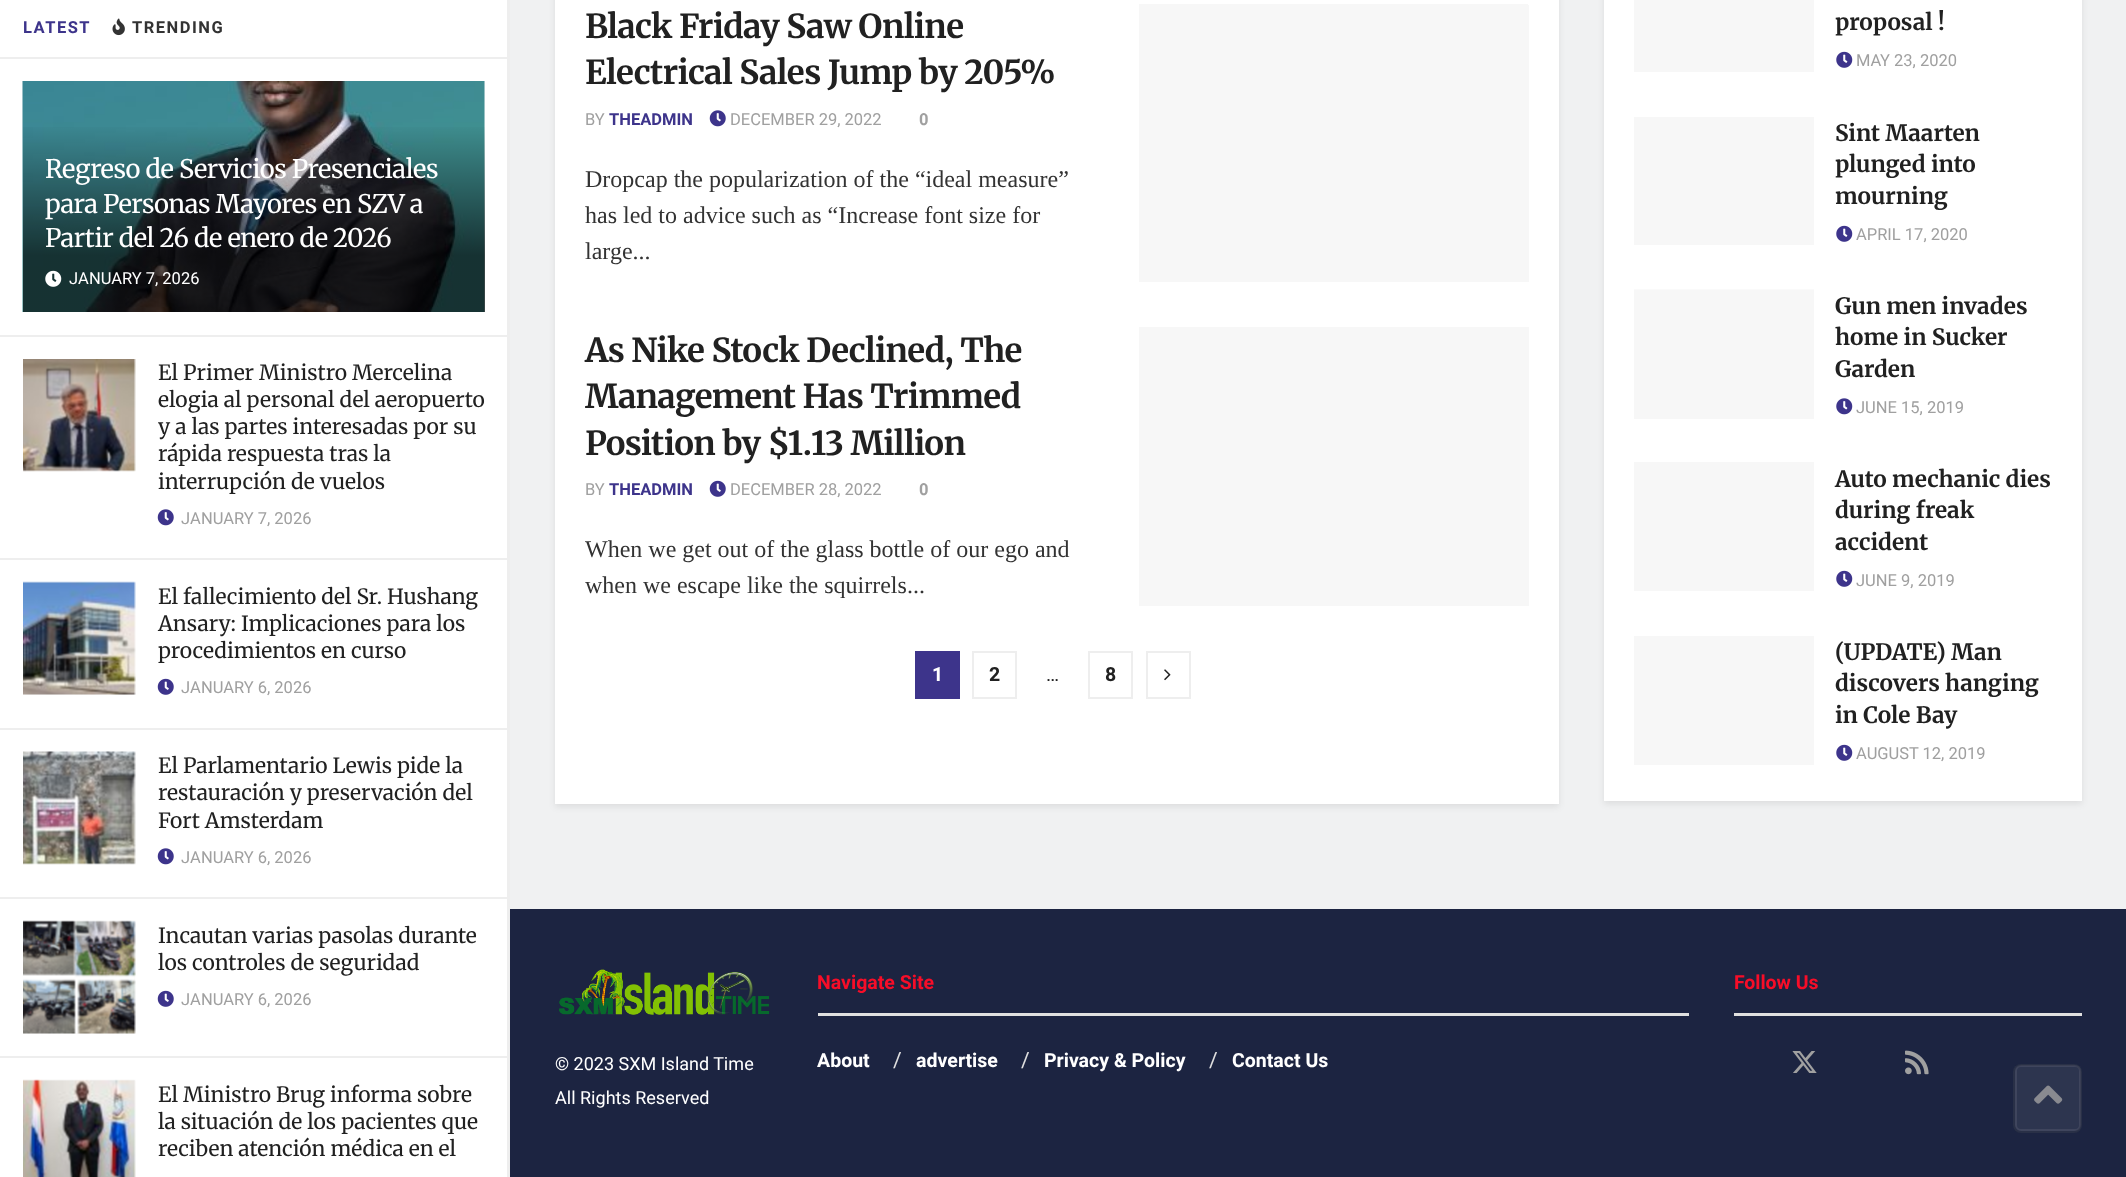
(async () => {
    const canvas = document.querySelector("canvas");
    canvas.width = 2126;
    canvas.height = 1177;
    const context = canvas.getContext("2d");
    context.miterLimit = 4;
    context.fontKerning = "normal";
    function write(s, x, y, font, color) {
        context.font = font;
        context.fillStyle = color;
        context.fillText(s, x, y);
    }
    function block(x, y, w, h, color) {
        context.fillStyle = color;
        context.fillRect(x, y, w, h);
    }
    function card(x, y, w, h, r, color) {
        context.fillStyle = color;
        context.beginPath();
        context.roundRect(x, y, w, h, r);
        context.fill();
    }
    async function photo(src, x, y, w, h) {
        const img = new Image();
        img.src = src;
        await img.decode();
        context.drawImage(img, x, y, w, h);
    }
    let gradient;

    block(0, 0, 2126, 1177, "rgb(255, 255, 255)");
    block(507, 0, 3, 1177, "rgb(238, 238, 238)");
    block(0, 57, 507, 2, "rgb(238, 238, 238)");
    context.letterSpacing = "1.5px";
    write("LATEST", 23, 33, "bold 16.5px Heebo", "rgb(61, 52, 139)");
    await photo("media/1.png", 112, 18, 13, 18);
    write("TRENDING", 132, 33, "bold 16.5px Heebo", "rgb(51, 51, 51)");
    block(0, 335, 507, 2, "rgb(238, 238, 238)");
    block(484, 81, 1, 231, "rgb(247, 247, 247)");
    block(22, 81, 1, 231, "rgb(251, 251, 251)");
    await photo("media/2.png", 22, 81, 463, 231);
    gradient = context.createLinearGradient(254, 123, 254, 312);
    gradient.addColorStop(0, "rgba(0, 0, 0, 0)");
    gradient.addColorStop(0.7, "rgba(0, 0, 0, 0.65)");
    context.fillStyle = gradient;
    context.fillRect(23, 127, 462, 185);
    context.letterSpacing = "-0.5px";
    write("Regreso de Servicios Presenciales", 45, 178, "25.5px Merriweather", "rgb(255, 255, 255)");
    write("para Personas Mayores en SZV a", 45, 213, "25.5px Merriweather", "rgb(255, 255, 255)");
    write("Partir del 26 de enero de 2026", 45, 247, "25.5px Merriweather", "rgb(255, 255, 255)");
    await photo("media/3.png", 45, 270, 17, 17);
    context.letterSpacing = "0px";
    write("JANUARY 7, 2026", 69, 284, "16.5px Heebo", "rgb(255, 255, 255)");
    block(0, 558, 507, 2, "rgb(238, 238, 238)");
    block(23, 359, 112, 112, "rgb(247, 247, 247)");
    await photo("media/4.png", 23, 359, 113, 113);
    write("El Primer Ministro Mercelina", 158, 380, "21px Merriweather", "rgb(33, 33, 33)");
    write("elogia al personal del aeropuerto", 158, 407, "21px Merriweather", "rgb(33, 33, 33)");
    write("y a las partes interesadas por su", 158, 434, "21px Merriweather", "rgb(33, 33, 33)");
    write("rápida respuesta tras la", 158, 461, "21px Merriweather", "rgb(33, 33, 33)");
    write("interrupción de vuelos", 158, 489, "21px Merriweather", "rgb(33, 33, 33)");
    await photo("media/5.png", 157, 509, 17, 17);
    write("JANUARY 7, 2026", 181, 524, "16.5px Heebo", "rgb(160, 160, 160)");
    block(0, 728, 507, 2, "rgb(238, 238, 238)");
    block(23, 582, 112, 113, "rgb(247, 247, 247)");
    await photo("media/6.png", 23, 581, 113, 114);
    write("El fallecimiento del Sr. Hushang", 158, 604, "21px Merriweather", "rgb(33, 33, 33)");
    write("Ansary: Implicaciones para los", 158, 631, "21px Merriweather", "rgb(33, 33, 33)");
    write("procedimientos en curso", 158, 658, "21px Merriweather", "rgb(33, 33, 33)");
    await photo("media/7.png", 157, 678, 17, 17);
    write("JANUARY 6, 2026", 181, 693, "16.5px Heebo", "rgb(160, 160, 160)");
    block(0, 897, 507, 2, "rgb(238, 238, 238)");
    block(23, 752, 112, 112, "rgb(247, 247, 247)");
    await photo("media/8.png", 23, 751, 113, 114);
    write("El Parlamentario Lewis pide la", 158, 773, "21px Merriweather", "rgb(33, 33, 33)");
    write("restauración y preservación del", 158, 800, "21px Merriweather", "rgb(33, 33, 33)");
    write("Fort Amsterdam", 158, 828, "21px Merriweather", "rgb(33, 33, 33)");
    await photo("media/5.png", 157, 848, 17, 17);
    write("JANUARY 6, 2026", 181, 863, "16.5px Heebo", "rgb(160, 160, 160)");
    block(0, 1056, 507, 2, "rgb(238, 238, 238)");
    block(23, 921, 112, 113, "rgb(247, 247, 247)");
    await photo("media/9.png", 23, 920, 113, 114);
    write("Incautan varias pasolas durante", 158, 943, "21px Merriweather", "rgb(33, 33, 33)");
    write("los controles de seguridad", 158, 970, "21px Merriweather", "rgb(33, 33, 33)");
    await photo("media/7.png", 157, 990, 17, 17);
    write("JANUARY 6, 2026", 181, 1005, "16.5px Heebo", "rgb(160, 160, 160)");
    block(23, 1080, 112, 97, "rgb(247, 247, 247)");
    await photo("media/10.png", 23, 1079, 113, 98);
    write("El Ministro Brug informa sobre", 158, 1102, "21px Merriweather", "rgb(33, 33, 33)");
    write("la situación de los pacientes que", 158, 1129, "21px Merriweather", "rgb(33, 33, 33)");
    write("reciben atención médica en el", 158, 1156, "21px Merriweather", "rgb(33, 33, 33)");
    block(510, 0, 1616, 909, "rgb(240, 241, 242)");
    context.fillStyle = "rgba(0, 0, 0, 0.08)";
    context.filter = "blur(3px)";
    context.beginPath();
    context.rect(555, -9, 1004, 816);
    context.fill();
    context.filter = "none";
    block(555, 0, 1004, 804, "rgb(255, 255, 255)");
    context.letterSpacing = "-0.65px";
    write("Black Friday Saw Online", 585, 38, "bold 33px Merriweather", "rgb(33, 33, 33)");
    write("Electrical Sales Jump by 205%", 585, 84, "bold 33px Merriweather", "rgb(33, 33, 33)");
    context.letterSpacing = "0px";
    write("BY", 585, 125, "16.5px Heebo", "rgb(160, 160, 160)");
    write("THEADMIN", 609, 125, "bold 16.5px Heebo", "rgb(61, 52, 139)");
    await photo("media/5.png", 709, 110, 17, 17);
    write("DECEMBER 29, 2022", 730, 125, "16.5px Heebo", "rgb(160, 160, 160)");
    write("0", 919, 125, "bold 16.5px Heebo", "rgb(160, 160, 160)");
    write("Dropcap the popularization of the “ideal measure”", 585, 187, "24px Liberation Serif", "rgb(51, 51, 51)");
    write("has led to advice such as “Increase font size for", 585, 223, "24px Liberation Serif", "rgb(51, 51, 51)");
    write("large...", 585, 259, "24px Liberation Serif", "rgb(51, 51, 51)");
    block(1139, 5, 390, 277, "rgb(247, 247, 247)");
    block(1139, 4, 389, 1, "rgb(247, 247, 247)");
    context.letterSpacing = "-0.65px";
    write("As Nike Stock Declined, The", 585, 362, "bold 33px Merriweather", "rgb(33, 33, 33)");
    write("Management Has Trimmed", 585, 408, "bold 33px Merriweather", "rgb(33, 33, 33)");
    write("Position by $1.13 Million", 585, 455, "bold 33px Merriweather", "rgb(33, 33, 33)");
    context.letterSpacing = "0px";
    write("BY", 585, 495, "16.5px Heebo", "rgb(160, 160, 160)");
    write("THEADMIN", 609, 495, "bold 16.5px Heebo", "rgb(61, 52, 139)");
    await photo("media/7.png", 709, 480, 17, 17);
    write("DECEMBER 28, 2022", 730, 495, "16.5px Heebo", "rgb(160, 160, 160)");
    write("0", 919, 495, "bold 16.5px Heebo", "rgb(160, 160, 160)");
    write("When we get out of the glass bottle of our ego and", 585, 557, "24px Liberation Serif", "rgb(51, 51, 51)");
    write("when we escape like the squirrels...", 585, 593, "24px Liberation Serif", "rgb(51, 51, 51)");
    block(1139, 327, 390, 279, "rgb(247, 247, 247)");
    block(915, 651, 45, 48, "rgb(61, 52, 139)");
    write("1", 932, 681, "bold 19.5px Heebo", "rgb(255, 255, 255)");
    context.strokeStyle = "rgb(238, 238, 238)";
    context.lineWidth = 2;
    context.strokeRect(973, 652, 43, 46);
    write("2", 989, 681, "bold 19.5px Heebo", "rgb(33, 33, 33)");
    write("…", 1046, 681, "19.5px Heebo", "rgb(33, 33, 33)");
    context.strokeRect(1089, 652, 43, 46);
    write("8", 1105, 681, "bold 19.5px Heebo", "rgb(33, 33, 33)");
    context.strokeRect(1147, 652, 43, 46);
    await photo("media/11.png", 1164, 669, 7, 12);
    context.fillStyle = "rgba(0, 0, 0, 0.08)";
    context.filter = "blur(3px)";
    context.beginPath();
    context.rect(1604, -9, 478, 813);
    context.fill();
    context.filter = "none";
    block(1604, 0, 478, 801, "rgb(255, 255, 255)");
    block(1634, 0, 180, 72, "rgb(247, 247, 247)");
    write("proposal !", 1835, 30, "bold 22.5px Merriweather", "rgb(33, 33, 33)");
    await photo("media/12.png", 1836, 51, 17, 17);
    write("MAY 23, 2020", 1856, 66, "16.5px Heebo", "rgb(160, 160, 160)");
    block(1634, 117, 180, 128, "rgb(247, 247, 247)");
    write("Sint Maarten", 1835, 141, "bold 22.5px Merriweather", "rgb(33, 33, 33)");
    write("plunged into", 1835, 172, "bold 22.5px Merriweather", "rgb(33, 33, 33)");
    write("mourning", 1835, 204, "bold 22.5px Merriweather", "rgb(33, 33, 33)");
    await photo("media/12.png", 1836, 225, 17, 17);
    write("APRIL 17, 2020", 1856, 240, "16.5px Heebo", "rgb(160, 160, 160)");
    block(1634, 290, 180, 129, "rgb(247, 247, 247)");
    block(1634, 289, 180, 1, "rgb(250, 250, 250)");
    write("Gun men invades", 1835, 314, "bold 22.5px Merriweather", "rgb(33, 33, 33)");
    write("home in Sucker", 1835, 345, "bold 22.5px Merriweather", "rgb(33, 33, 33)");
    write("Garden", 1835, 377, "bold 22.5px Merriweather", "rgb(33, 33, 33)");
    await photo("media/13.png", 1836, 398, 17, 17);
    write("JUNE 15, 2019", 1856, 413, "16.5px Heebo", "rgb(160, 160, 160)");
    block(1634, 462, 180, 129, "rgb(247, 247, 247)");
    write("Auto mechanic dies", 1835, 487, "bold 22.5px Merriweather", "rgb(33, 33, 33)");
    write("during freak", 1835, 518, "bold 22.5px Merriweather", "rgb(33, 33, 33)");
    write("accident", 1835, 550, "bold 22.5px Merriweather", "rgb(33, 33, 33)");
    await photo("media/12.png", 1836, 570, 17, 17);
    write("JUNE 9, 2019", 1856, 586, "16.5px Heebo", "rgb(160, 160, 160)");
    block(1634, 636, 180, 129, "rgb(247, 247, 247)");
    write("(UPDATE) Man", 1835, 660, "bold 22.5px Merriweather", "rgb(33, 33, 33)");
    write("discovers hanging", 1835, 691, "bold 22.5px Merriweather", "rgb(33, 33, 33)");
    write("in Cole Bay", 1835, 723, "bold 22.5px Merriweather", "rgb(33, 33, 33)");
    await photo("media/12.png", 1836, 744, 17, 17);
    write("AUGUST 12, 2019", 1856, 759, "16.5px Heebo", "rgb(160, 160, 160)");
    block(510, 909, 1616, 268, "rgb(28, 36, 65)");
    block(818, 1013, 871, 3, "rgb(224, 224, 224)");
    write("Navigate Site", 817, 989, "bold 19.5px Heebo", "rgb(247, 13, 40)");
    write("About", 817, 1067, "bold 19.5px Heebo", "rgb(255, 255, 255)");
    write("/", 893, 1067, "21px Heebo", "rgb(224, 224, 224)");
    write("advertise", 916, 1067, "bold 19.5px Heebo", "rgb(255, 255, 255)");
    write("/", 1021, 1067, "21px Heebo", "rgb(224, 224, 224)");
    write("Privacy & Policy", 1044, 1067, "bold 19.5px Heebo", "rgb(255, 255, 255)");
    write("/", 1209, 1067, "21px Heebo", "rgb(224, 224, 224)");
    write("Contact Us", 1232, 1067, "bold 19.5px Heebo", "rgb(255, 255, 255)");
    block(1734, 1013, 348, 3, "rgb(224, 224, 224)");
    write("Follow Us", 1734, 989, "bold 19.5px Heebo", "rgb(247, 13, 40)");
    await photo("media/14.png", 1792, 1051, 25, 22);
    await photo("media/15.png", 1905, 1050, 24, 25);
    await photo("media/16.png", 559, 969, 211, 46);
    write("© 2023 SXM Island Time", 555, 1070, "18px Heebo", "rgb(255, 255, 255)");
    write("All Rights Reserved", 555, 1104, "18px Heebo", "rgb(255, 255, 255)");
    card(2013, 1064, 69, 69, 8, "rgba(150, 152, 158, 0.15)");
    context.beginPath();
    context.roundRect(2016, 1066, 64, 64, 5);
    context.strokeStyle = "rgb(63, 69, 93)";
    context.stroke();
    context.beginPath();
    context.roundRect(2014, 1065, 67, 67, 7);
    context.strokeStyle = "rgba(6, 7, 13, 0.11)";
    context.stroke();
    await photo("media/17.png", 2034, 1085, 29, 19);
})();
